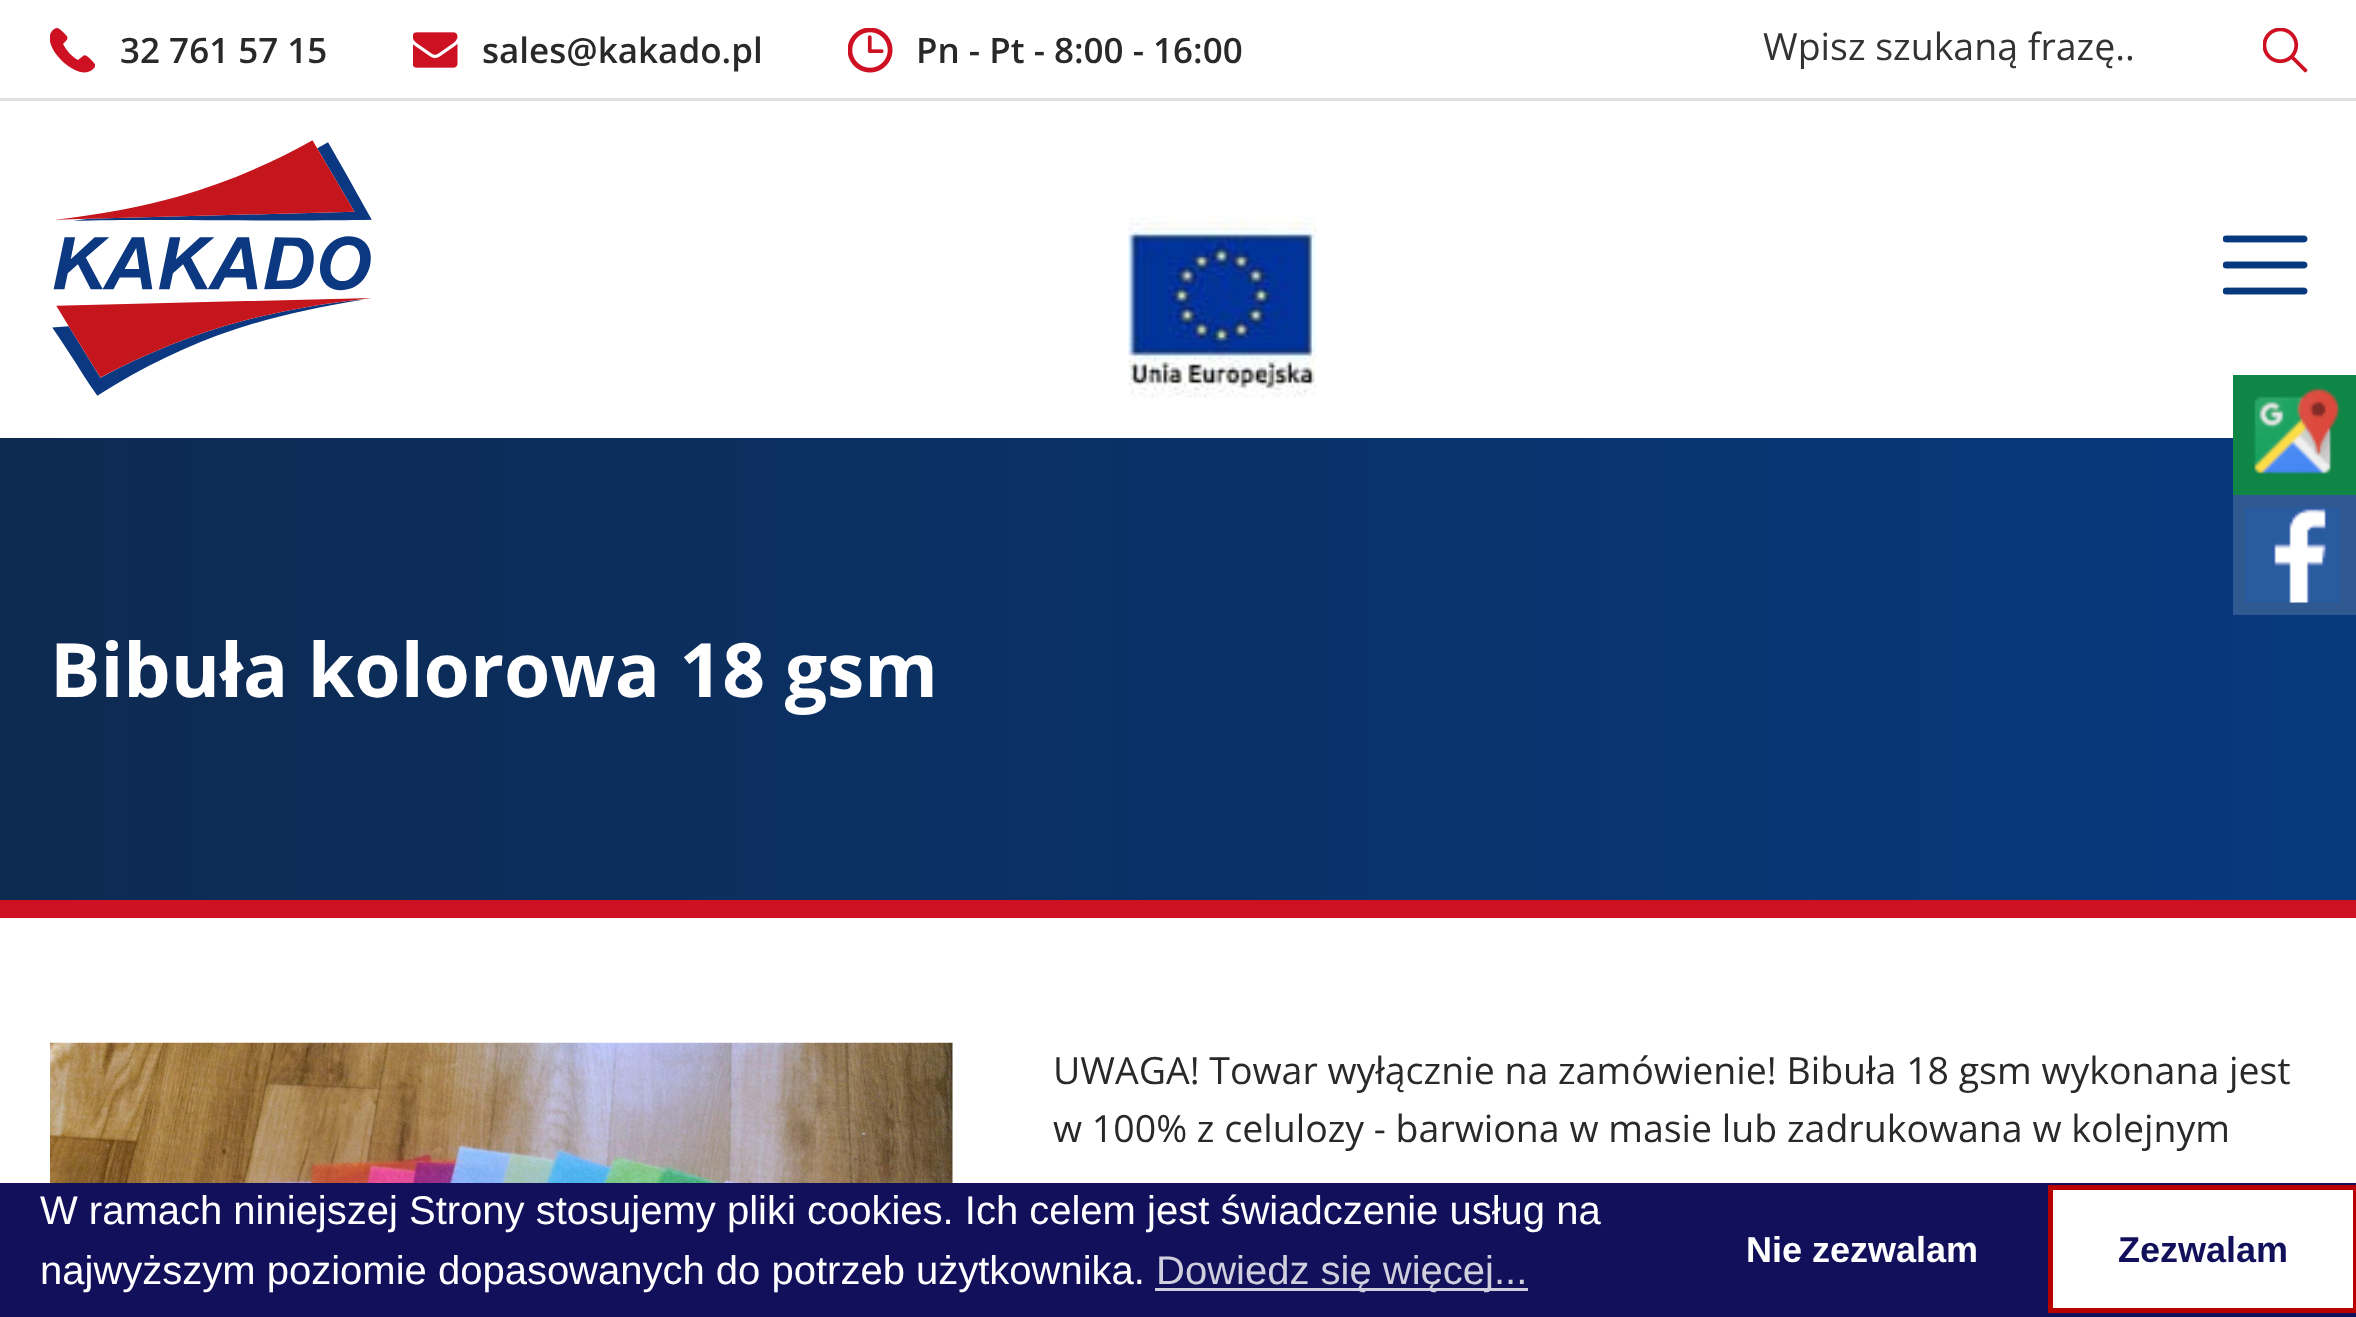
(async () => {
    const canvas = document.querySelector("canvas");
    canvas.width = 2356;
    canvas.height = 1317;
    const context = canvas.getContext("2d");
    context.miterLimit = 4;
    context.fontKerning = "normal";
    function write(s, x, y, font, color) {
        context.font = font;
        context.fillStyle = color;
        context.fillText(s, x, y);
    }
    function block(x, y, w, h, color) {
        context.fillStyle = color;
        context.fillRect(x, y, w, h);
    }
    async function photo(src, x, y, w, h) {
        const img = new Image();
        img.src = src;
        await img.decode();
        context.drawImage(img, x, y, w, h);
    }
    let gradient;

    block(0, 0, 2356, 1317, "rgb(255, 255, 255)");
    block(0, 98, 2356, 3, "rgb(225, 225, 225)");
    write("32 761 57 15", 120, 63, "600 35px Open Sans", "rgb(41, 41, 41)");
    context.save();
    context.beginPath();
    context.rect(50, 28, 45, 45);
    context.clip();
    context.fillStyle = "rgb(205, 17, 35)";
    context.beginPath();
    context.moveTo(94, 63);
    context.bezierCurveTo(92, 61, 86, 53, 83, 56);
    context.lineTo(78, 60);
    context.bezierCurveTo(71, 56, 67, 51, 63, 44);
    context.bezierCurveTo(69, 38, 69, 38, 63, 32);
    context.bezierCurveTo(58, 28, 57, 26, 52, 31);
    context.bezierCurveTo(40, 46, 77, 82, 92, 70);
    context.bezierCurveTo(94, 68, 97, 66, 94, 63);
    context.closePath();
    context.fill();
    context.restore();
    await photo("media/1.png", 413, 32, 45, 36);
    write("sales@kakado.pl", 482, 63, "600 35px Open Sans", "rgb(41, 41, 41)");
    await photo("media/2.png", 848, 28, 45, 45);
    write("Pn - Pt - 8:00 - 16:00", 916, 63, "600 35px Open Sans", "rgb(41, 41, 41)");
    write("Wpisz szukaną frazę..", 1763, 60, "37.5px Open Sans", "rgb(51, 51, 51)");
    await photo("media/3.png", 2263, 28, 45, 45);
    await photo("media/4.png", 52, 140, 320, 256);
    await photo("media/5.png", 1128, 217, 189, 181);
    await photo("media/6.png", 2223, 235, 85, 60);
    gradient = context.createLinearGradient(0, 669, 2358, 669);
    gradient.addColorStop(0, "rgb(13, 42, 81)");
    gradient.addColorStop(1, "rgb(7, 57, 126)");
    context.fillStyle = gradient;
    context.fillRect(0, 438, 2356, 462);
    block(2233, 375, 123, 120, "rgb(15, 133, 70)");
    await photo("media/7.png", 2252, 387, 88, 88);
    block(2233, 495, 123, 120, "rgb(48, 88, 145)");
    await photo("media/8.png", 2245, 507, 95, 96);
    block(0, 900, 2356, 18, "rgb(205, 17, 35)");
    write("Bibuła kolorowa 18 gsm", 50, 697, "bold 75px Open Sans", "rgb(255, 255, 255)");
    await photo("media/9.png", 50, 1042, 903, 141);
    write("UWAGA! Towar wyłącznie na zamówienie! Bibuła 18 gsm wykonana jest", 1053, 1084, "37.5px Open Sans", "rgb(41, 41, 41)");
    write("w 100% z celulozy - barwiona w masie lub zadrukowana w kolejnym", 1053, 1142, "37.5px Open Sans", "rgb(41, 41, 41)");
    block(0, 1183, 2356, 134, "rgb(18, 15, 91)");
    write("W ramach niniejszej Strony stosujemy pliki cookies. Ich celem jest świadczenie usług na", 40, 1224, "40px Liberation Sans", "rgb(255, 255, 255)");
    write("najwyższym poziomie dopasowanych do potrzeb użytkownika.", 40, 1284, "40px Liberation Sans", "rgb(255, 255, 255)");
    block(1155, 1288, 373, 3, "rgb(208, 207, 222)");
    write("Dowiedz się więcej...", 1156, 1284, "40px Liberation Sans", "rgb(208, 207, 222)");
    write("Nie zezwalam", 1746, 1262, "bold 36px Liberation Sans", "rgb(255, 255, 255)");
    context.beginPath();
    context.rect(2050.5, 1187.5, 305, 123);
    context.fill();
    context.strokeStyle = "rgb(184, 0, 0)";
    context.lineWidth = 5;
    context.stroke();
    write("Zezwalam", 2118, 1262, "bold 36px Liberation Sans", "rgb(18, 15, 91)");
})();
